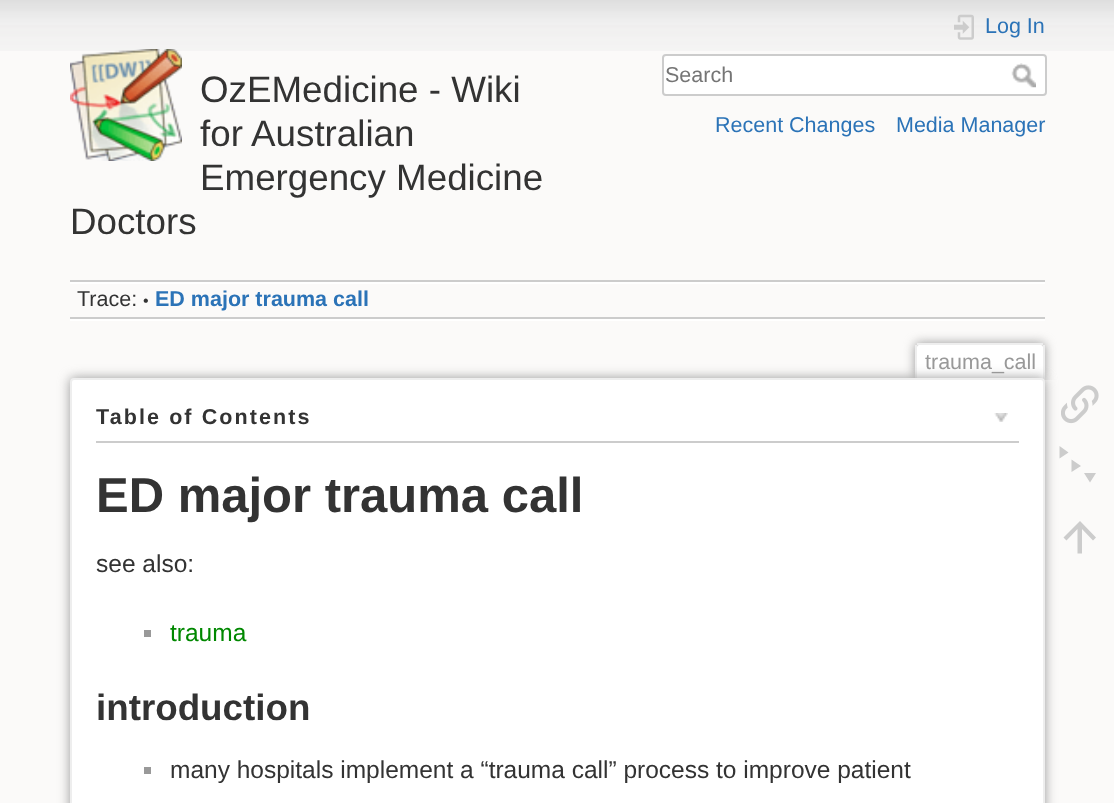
(async () => {
    const canvas = document.querySelector("canvas");
    canvas.width = 1114;
    canvas.height = 803;
    const context = canvas.getContext("2d");
    context.miterLimit = 4;
    context.fontKerning = "normal";
    function write(s, x, y, font, color) {
        context.font = font;
        context.fillStyle = color;
        context.fillText(s, x, y);
    }
    function block(x, y, w, h, color) {
        context.fillStyle = color;
        context.fillRect(x, y, w, h);
    }
    async function photo(src, x, y, w, h) {
        const img = new Image();
        img.src = src;
        await img.decode();
        context.drawImage(img, x, y, w, h);
    }

    block(0, 0, 1114, 803, "rgb(251, 250, 249)");
    await photo("media/1.png", 0, 0, 1114, 51);
    await photo("media/2.png", 70, 49, 112, 112);
    write("OzEMedicine - Wiki", 200, 102, "36.75px Liberation Sans", "rgb(51, 51, 51)");
    write("for Australian", 200, 146, "36.75px Liberation Sans", "rgb(51, 51, 51)");
    write("Emergency Medicine", 200, 190, "36.75px Liberation Sans", "rgb(51, 51, 51)");
    write("Doctors", 70, 234, "36.75px Liberation Sans", "rgb(51, 51, 51)");
    await photo("media/3.png", 954, 14, 20, 26);
    write("Log In", 985, 33, "21.5px Liberation Sans", "rgb(43, 115, 183)");
    context.fillStyle = "rgb(255, 255, 255)";
    context.beginPath();
    context.roundRect(663, 55, 383, 40, 3);
    context.fill();
    context.strokeStyle = "rgb(204, 204, 204)";
    context.lineWidth = 2;
    context.stroke();
    write("Search", 665, 82, "21.5px Liberation Sans", "rgb(117, 117, 117)");
    await photo("media/4.png", 1011, 63, 25, 25);
    write("Recent Changes", 715, 132, "21.5px Liberation Sans", "rgb(43, 115, 183)");
    write("Media Manager", 896, 132, "21.5px Liberation Sans", "rgb(43, 115, 183)");
    block(70, 280, 975, 2, "rgb(204, 204, 204)");
    block(70, 319, 975, 2, "rgb(255, 255, 255)");
    block(70, 282, 975, 2, "rgb(255, 255, 255)");
    block(70, 317, 975, 2, "rgb(204, 204, 204)");
    write("Trace:", 77, 306, "21.5px Liberation Sans", "rgb(51, 51, 51)");
    write("•", 143, 306, "16px Liberation Sans", "rgb(51, 51, 51)");
    write("ED major trauma call", 155, 306, "bold 21.5px Liberation Sans", "rgb(43, 115, 183)");
    context.save();
    context.beginPath();
    context.rect(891, 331, 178, 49);
    context.clip();
    context.fillStyle = "rgb(153, 153, 153)";
    context.filter = "blur(5.5px)";
    context.beginPath();
    context.roundRect(915, 343, 130, 37, 4);
    context.fill();
    context.filter = "none";
    context.restore();
    context.fillStyle = "rgb(255, 255, 255)";
    context.beginPath();
    context.roundRect(917, 345, 126, 35, [2, 2, 0, 0]);
    context.fill();
    block(917, 343, 126, 2, "rgb(238, 238, 238)");
    block(1043, 345, 2, 35, "rgb(238, 238, 238)");
    block(915, 345, 2, 35, "rgb(238, 238, 238)");
    write("trauma_call", 925, 369, "21.5px Liberation Sans", "rgb(153, 153, 153)");
    context.filter = "blur(6px)";
    context.beginPath();
    context.roundRect(70, 378, 975, 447, 4);
    context.fill();
    context.filter = "none";
    context.fillStyle = "rgb(255, 255, 255)";
    context.beginPath();
    context.roundRect(71, 379, 973, 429, 3);
    context.fill();
    context.strokeStyle = "rgb(238, 238, 238)";
    context.stroke();
    block(96, 441, 923, 2, "rgb(204, 204, 204)");
    context.letterSpacing = "2.1px";
    write("Table of Contents", 96, 424, "bold 21.5px Liberation Sans", "rgb(51, 51, 51)");
    await photo("media/5.png", 994, 413, 14, 9);
    context.letterSpacing = "0px";
    write("ED major trauma call", 96, 512, "bold 49px Liberation Sans", "rgb(51, 51, 51)");
    write("see also:", 96, 572, "24.5px Liberation Sans", "rgb(51, 51, 51)");
    block(144, 630, 7, 7, "rgb(153, 153, 153)");
    write("trauma", 170, 641, "24.5px Liberation Sans", "rgb(0, 136, 0)");
    write("introduction", 96, 720, "bold 36.75px Liberation Sans", "rgb(51, 51, 51)");
    block(144, 767, 7, 7, "rgb(153, 153, 153)");
    write("many hospitals implement a “trauma call” process to improve patient", 170, 778, "24.5px Liberation Sans", "rgb(51, 51, 51)");
    await photo("media/6.png", 1061, 385, 38, 39);
    context.fillStyle = "rgb(204, 204, 204)";
    context.beginPath();
    context.moveTo(1059.5, 446);
    context.lineTo(1068.5, 452.5);
    context.lineTo(1059.5, 458.5);
    context.closePath();
    context.moveTo(1071.5, 459.5);
    context.lineTo(1081, 466);
    context.lineTo(1071.5, 472);
    context.closePath();
    context.moveTo(1084, 473);
    context.lineTo(1096, 473);
    context.lineTo(1090, 482.5);
    context.closePath();
    context.fill();
    context.beginPath();
    context.moveTo(1082, 553.5);
    context.lineTo(1077.5, 553.5);
    context.lineTo(1077.5, 529);
    context.lineTo(1066.5, 540.5);
    context.lineTo(1063.5, 537.5);
    context.lineTo(1080, 521);
    context.lineTo(1096, 537.5);
    context.lineTo(1093, 540.5);
    context.lineTo(1082, 529);
    context.closePath();
    context.fill();
})();
